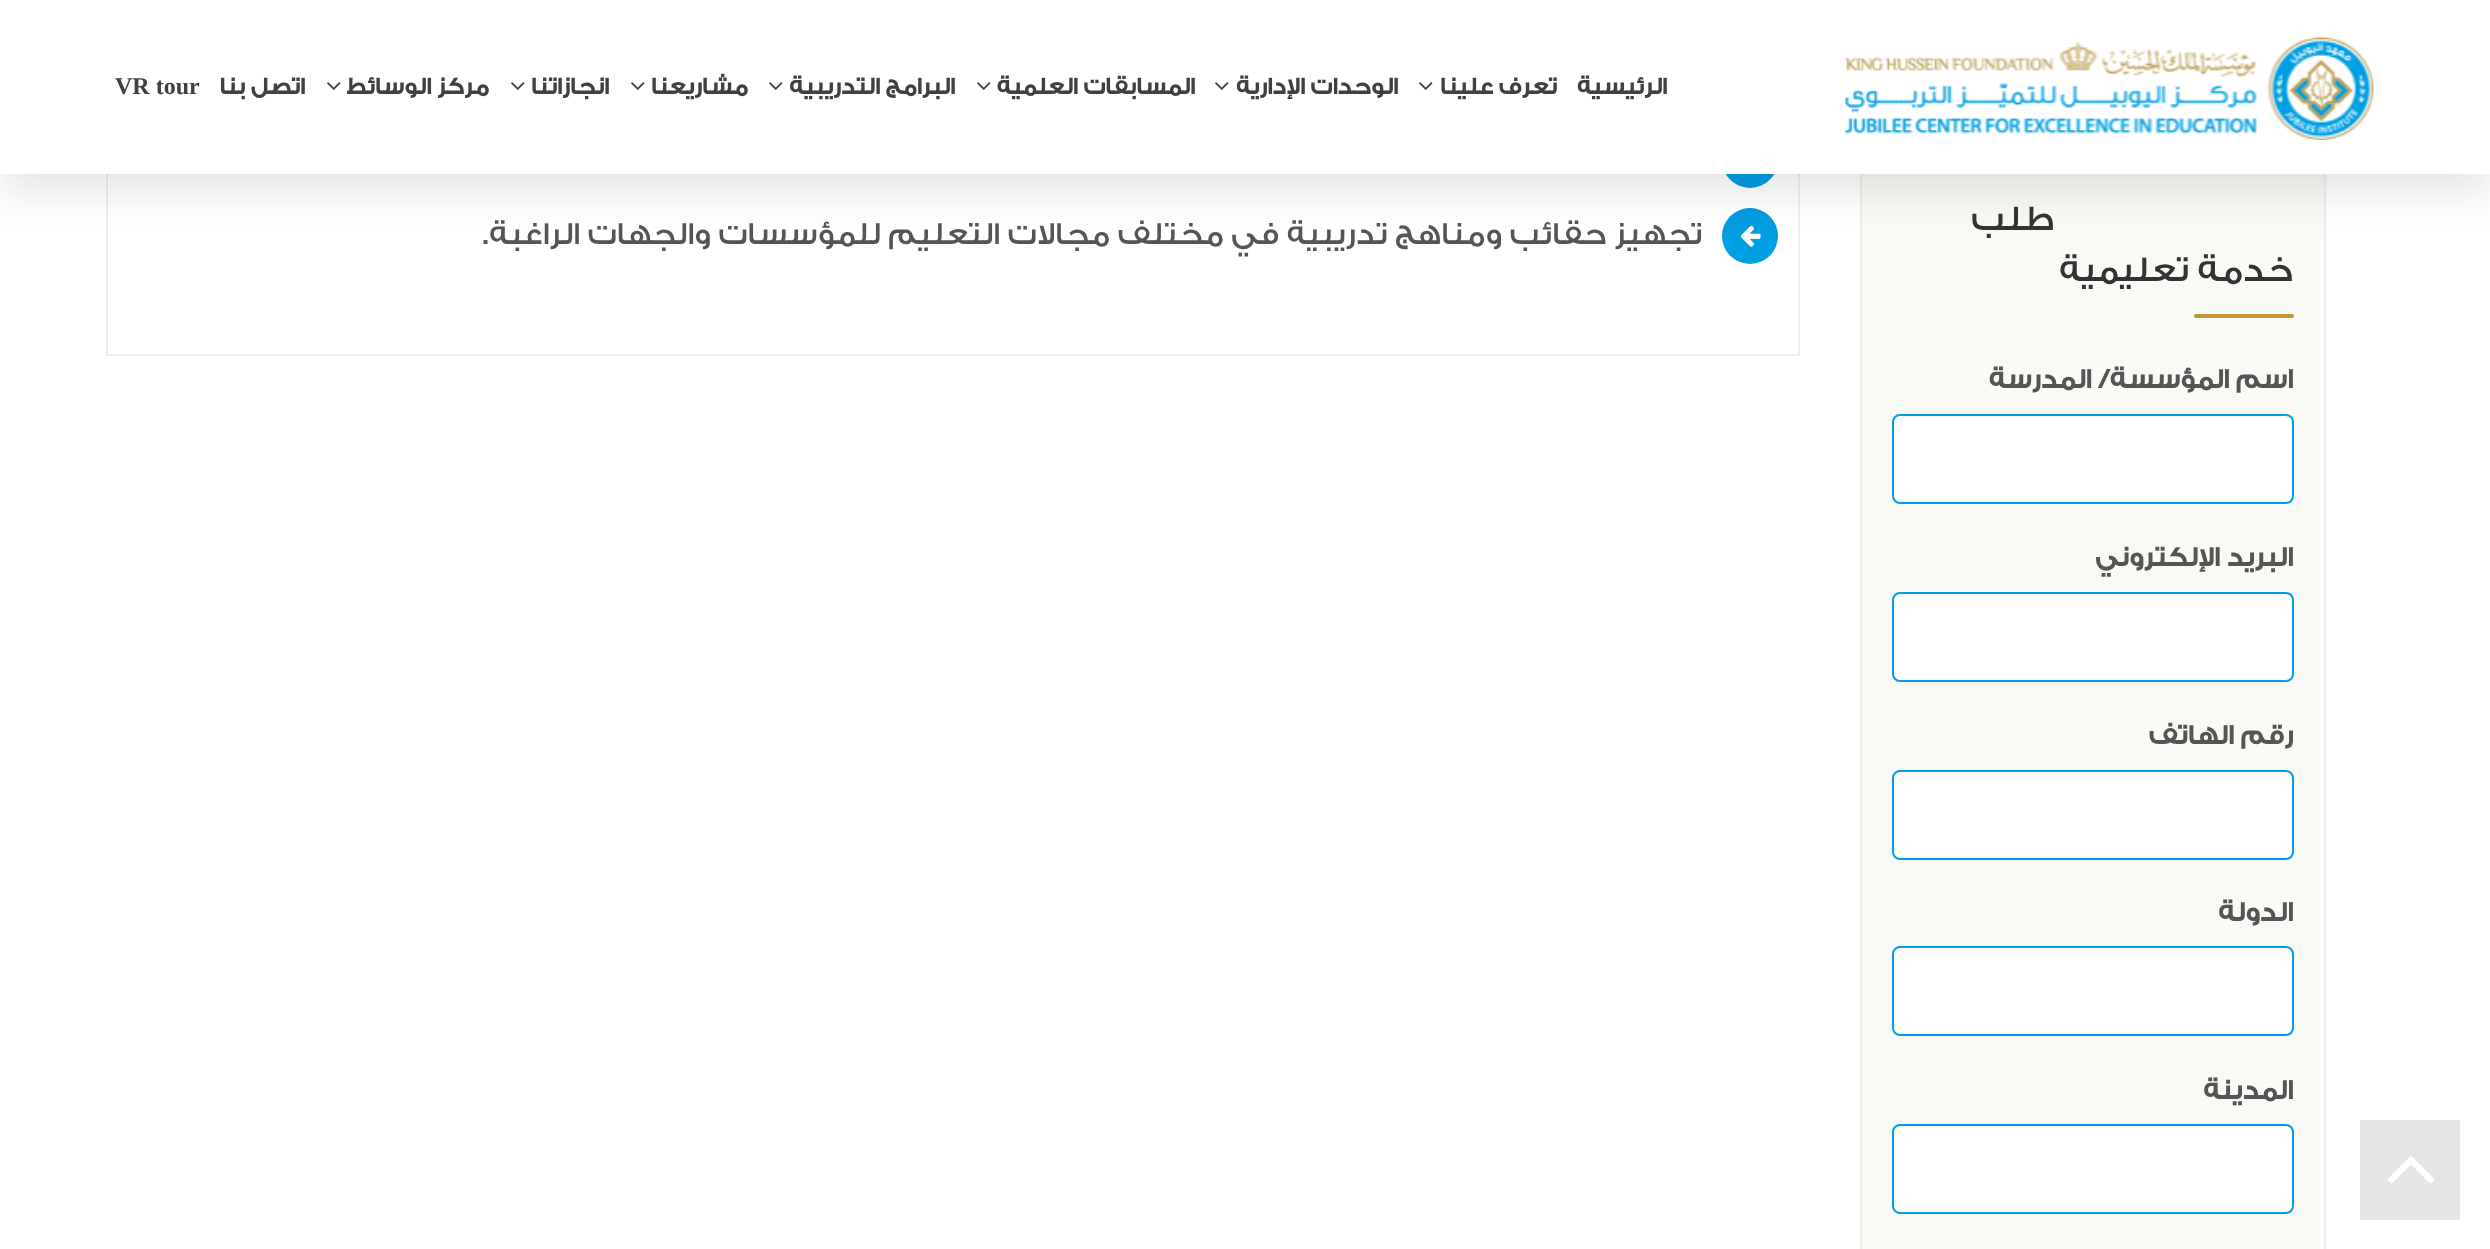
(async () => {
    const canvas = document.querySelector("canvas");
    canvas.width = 2490;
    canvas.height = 1249;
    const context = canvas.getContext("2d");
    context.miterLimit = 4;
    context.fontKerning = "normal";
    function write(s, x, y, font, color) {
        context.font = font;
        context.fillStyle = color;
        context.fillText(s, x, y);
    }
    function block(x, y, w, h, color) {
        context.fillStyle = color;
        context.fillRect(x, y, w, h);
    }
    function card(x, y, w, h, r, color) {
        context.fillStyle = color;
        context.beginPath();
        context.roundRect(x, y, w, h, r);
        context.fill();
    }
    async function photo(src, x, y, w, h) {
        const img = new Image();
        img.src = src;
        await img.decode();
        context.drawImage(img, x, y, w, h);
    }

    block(0, 0, 2490, 1249, "rgb(255, 255, 255)");
    block(1862, 174, 462, 1075, "rgb(249, 249, 246)");
    context.strokeStyle = "rgb(238, 238, 238)";
    context.lineWidth = 2;
    context.strokeRect(1861, 159, 464, 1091);
    context.strokeRect(107, -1, 1692, 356);
    context.fillStyle = "rgb(0, 158, 226)";
    context.beginPath();
    context.arc(1750, 160, 28, 0, Math.PI * 2);
    context.fill();
    context.beginPath();
    context.arc(1750, 236, 28, 0, Math.PI * 2);
    context.fill();
    await photo("media/3.png", 1740, 225, 21, 22);
    context.fillStyle = "rgba(0, 0, 0, 0.1)";
    context.filter = "blur(20px)";
    context.beginPath();
    context.rect(0, 20, 2490, 174);
    context.fill();
    context.filter = "none";
    block(0, 0, 2490, 174, "rgb(255, 255, 255)");
    await photo("media/1.png", 1845, 37, 529, 103);
    context.direction = "rtl";
    write("الرئيسية", 1667, 94, "bold 24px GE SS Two", "rgb(64, 64, 64)");
    write("تعرف علينا", 1557, 94, "bold 24px GE SS Two", "rgb(64, 64, 64)");
    await photo("media/2.png", 1419, 82, 14, 8);
    write("الوحدات الإدارية", 1398, 94, "bold 24px GE SS Two", "rgb(64, 64, 64)");
    await photo("media/2.png", 1215, 82, 14, 8);
    write("المسابقات العلمية", 1195, 94, "bold 24px GE SS Two", "rgb(64, 64, 64)");
    await photo("media/2.png", 977, 82, 14, 8);
    write("البرامج التدريبية", 955, 94, "bold 24px GE SS Two", "rgb(64, 64, 64)");
    await photo("media/2.png", 769, 82, 14, 8);
    write("مشاريعنا", 748, 94, "bold 24px GE SS Two", "rgb(64, 64, 64)");
    await photo("media/2.png", 631, 82, 14, 8);
    write("انجازاتنا", 609, 94, "bold 24px GE SS Two", "rgb(64, 64, 64)");
    await photo("media/2.png", 511, 82, 14, 8);
    write("مركز الوسائط", 489, 94, "bold 24px GE SS Two", "rgb(64, 64, 64)");
    await photo("media/2.png", 327, 82, 14, 8);
    write("اتصل بنا", 305, 94, "bold 24px GE SS Two", "rgb(64, 64, 64)");
    context.direction = "ltr";
    write("VR tour", 115, 94, "bold 24px Liberation Serif", "rgb(64, 64, 64)");
    context.direction = "rtl";
    write("طلب", 2054, 230, "500 36px GE SS Two", "rgb(51, 51, 51)");
    write("خدمة تعليمية", 2293, 281, "500 36px GE SS Two", "rgb(51, 51, 51)");
    card(2194, 314, 100, 4, 2, "rgb(195, 152, 58)");
    write("اسم المؤسسة/ المدرسة", 2293, 388, "bold 28px GE SS Two", "rgb(85, 85, 85)");
    context.fillStyle = "rgb(255, 255, 255)";
    context.beginPath();
    context.roundRect(1893, 415, 400, 88, 7);
    context.fill();
    context.strokeStyle = "rgb(0, 158, 226)";
    context.stroke();
    write("البريد الإلكتروني", 2293, 566, "bold 28px GE SS Two", "rgb(85, 85, 85)");
    context.fillStyle = "rgb(255, 255, 255)";
    context.beginPath();
    context.roundRect(1893, 593, 400, 88, 7);
    context.fill();
    context.stroke();
    write("رقم الهاتف", 2293, 744, "bold 28px GE SS Two", "rgb(85, 85, 85)");
    context.fillStyle = "rgb(255, 255, 255)";
    context.beginPath();
    context.roundRect(1893, 771, 400, 88, 7);
    context.fill();
    context.stroke();
    write("الدولة", 2293, 921, "bold 28px GE SS Two", "rgb(85, 85, 85)");
    context.fillStyle = "rgb(255, 255, 255)";
    context.beginPath();
    context.roundRect(1893, 947, 400, 88, 7);
    context.fill();
    context.stroke();
    write("المدينة", 2293, 1099, "bold 28px GE SS Two", "rgb(85, 85, 85)");
    context.fillStyle = "rgb(255, 255, 255)";
    context.beginPath();
    context.roundRect(1893, 1125, 400, 88, 7);
    context.fill();
    context.stroke();
    write("تجهيز حقائب ومناهج تدريبية في مختلف مجالات التعليم للمؤسسات والجهات الراغبة.", 1702, 244, "500 32px GE SS Two", "rgb(85, 85, 85)");
    block(2360, 1120, 100, 100, "rgb(230, 230, 230)");
    await photo("media/4.png", 2387, 1156, 48, 28);
})();
